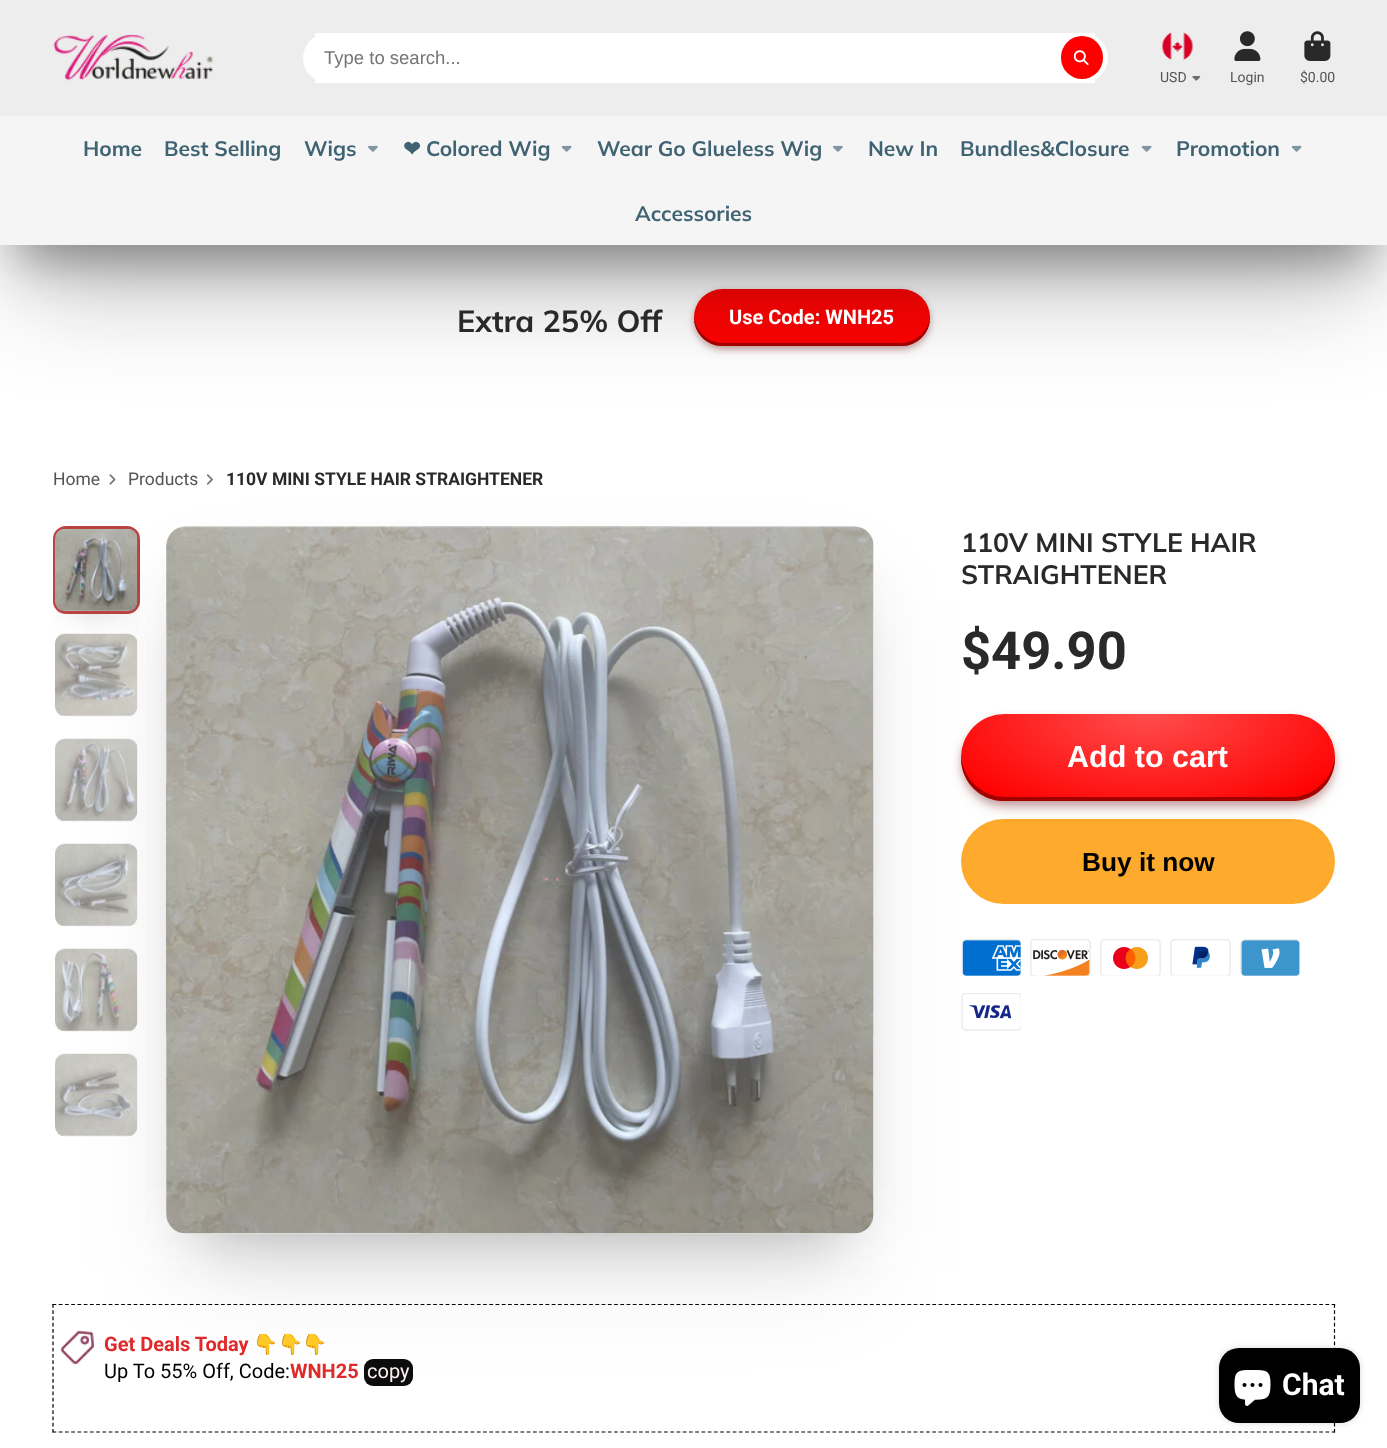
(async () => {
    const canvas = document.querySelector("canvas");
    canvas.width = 1387;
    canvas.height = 1448;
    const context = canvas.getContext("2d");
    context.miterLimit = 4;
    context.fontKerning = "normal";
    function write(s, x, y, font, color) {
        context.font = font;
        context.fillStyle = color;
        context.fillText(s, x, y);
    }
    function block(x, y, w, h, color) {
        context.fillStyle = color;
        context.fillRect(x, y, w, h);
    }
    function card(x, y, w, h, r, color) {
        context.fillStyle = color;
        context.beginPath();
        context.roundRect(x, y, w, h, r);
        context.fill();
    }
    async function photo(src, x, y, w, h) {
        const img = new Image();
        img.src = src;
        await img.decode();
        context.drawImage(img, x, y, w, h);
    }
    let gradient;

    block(0, 0, 1387, 1448, "rgb(255, 255, 255)");
    context.fillStyle = "rgba(102, 0, 0, 0.15)";
    context.filter = "blur(6px)";
    context.beginPath();
    context.roundRect(696, 298, 232, 51, 25.5);
    context.fill();
    context.filter = "none";
    context.fillStyle = "rgba(102, 0, 0, 0.3)";
    context.filter = "blur(3px)";
    context.beginPath();
    context.roundRect(694, 291, 236, 58, 29);
    context.fill();
    context.filter = "none";
    card(694, 289, 236, 57, 28.5, "rgb(255, 0, 0)");
    context.fillStyle = "rgb(163, 0, 0)";
    context.beginPath();
    context.moveTo(694, 316);
    context.lineTo(694, 318);
    context.bezierCurveTo(694, 333, 707, 346, 722, 346);
    context.lineTo(902, 346);
    context.bezierCurveTo(917, 346, 930, 333, 930, 318);
    context.lineTo(930, 316);
    context.bezierCurveTo(929, 331, 916, 343, 901, 343);
    context.lineTo(722, 343);
    context.bezierCurveTo(708, 343, 695, 331, 694, 316);
    context.closePath();
    context.fill();
    context.fillStyle = "rgba(28, 28, 28, 0.4)";
    context.filter = "blur(24px)";
    context.beginPath();
    context.rect(18, 50, 1352, 210);
    context.fill();
    context.filter = "none";
    context.fillStyle = "rgba(28, 28, 28, 0.3)";
    context.filter = "blur(54.5px)";
    context.beginPath();
    context.rect(18, 73, 1352, 210);
    context.fill();
    context.filter = "none";
    block(0, 0, 1387, 116, "rgb(237, 237, 237)");
    await photo("media/1.png", 53, 34, 160, 47);
    block(315, 33, 780, 50, "rgb(255, 255, 255)");
    card(303, 33, 805, 50, 25, "rgb(255, 255, 255)");
    write("Type to search...", 324, 64, "18.5px Liberation Sans", "rgb(117, 117, 117)");
    card(1061, 36, 42, 43, 21, "rgb(255, 0, 0)");
    await photo("media/2.png", 1074, 50, 15, 15);
    await photo("media/3.png", 1162, 32, 31, 28);
    write("USD", 1160, 82, "14px Roboto", "rgb(84, 84, 84)");
    await photo("media/4.png", 1192, 76, 9, 5);
    await photo("media/5.png", 1234, 31, 27, 30);
    write("Login", 1230, 82, "14px Roboto", "rgb(84, 84, 84)");
    await photo("media/6.png", 1304, 31, 27, 30);
    write("$0.00", 1300, 82, "14px Roboto", "rgb(84, 84, 84)");
    block(0, 116, 1387, 129, "rgb(245, 245, 245)");
    write("Home", 83, 156, "bold 21px Muli", "rgb(63, 99, 114)");
    write("Best Selling", 164, 156, "bold 21px Muli", "rgb(63, 99, 114)");
    write("Wigs", 304, 156, "bold 21px Muli", "rgb(63, 99, 114)");
    await photo("media/7.png", 368, 145, 10, 7);
    write("❤", 403, 156, "bold 21px DejaVu Sans", "rgb(63, 99, 114)");
    write("Colored Wig", 426, 156, "bold 21px Muli", "rgb(63, 99, 114)");
    await photo("media/8.png", 561, 145, 11, 7);
    write("Wear Go Glueless Wig", 597, 156, "bold 21px Muli", "rgb(63, 99, 114)");
    await photo("media/7.png", 833, 145, 10, 7);
    write("New In", 868, 156, "bold 21px Muli", "rgb(63, 99, 114)");
    write("Bundles&Closure", 960, 156, "bold 21px Muli", "rgb(63, 99, 114)");
    await photo("media/8.png", 1141, 145, 11, 7);
    write("Promotion", 1176, 156, "bold 21px Muli", "rgb(63, 99, 114)");
    await photo("media/8.png", 1291, 145, 11, 7);
    write("Accessories", 635, 221, "bold 21px Muli", "rgb(63, 99, 114)");
    write("Extra 25% Off", 457, 332, "bold 30.5px Muli", "rgb(41, 41, 41)");
    write("Use Code: WNH25", 729, 324, "bold 20px Roboto", "rgb(255, 255, 255)");
    write("Home", 53, 485, "17.5px Roboto", "rgb(84, 84, 84)");
    await photo("media/9.png", 109, 474, 7, 11);
    write("Products", 128, 485, "17.5px Roboto", "rgb(84, 84, 84)");
    await photo("media/10.png", 206, 474, 7, 11);
    write("110V MINI STYLE HAIR STRAIGHTENER", 226, 485, "bold 17.5px Roboto", "rgb(41, 41, 41)");
    context.save();
    context.beginPath();
    context.rect(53, 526, 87, 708);
    context.clip();
    context.fillStyle = "rgba(28, 28, 28, 0.3)";
    context.filter = "blur(17.5px)";
    context.beginPath();
    context.rect(70, 553, 53, 52);
    context.fill();
    context.filter = "none";
    context.restore();
    context.beginPath();
    context.roundRect(54.5, 527.5, 84, 85, 11.5);
    context.strokeStyle = "rgb(188, 66, 66)";
    context.lineWidth = 3;
    context.stroke();
    await photo("media/12.png", 55, 529, 83, 83);
    await photo("media/13.png", 55, 633, 83, 84);
    await photo("media/14.png", 55, 738, 83, 84);
    await photo("media/15.png", 55, 843, 83, 84);
    await photo("media/16.png", 55, 948, 83, 84);
    await photo("media/17.png", 55, 1053, 83, 84);
    context.beginPath();
    context.moveTo(52.5, 1304.5);
    context.lineTo(1335, 1304.5);
    context.strokeStyle = "rgb(0, 0, 0)";
    context.lineWidth = 1.2;
    context.setLineDash([3.75, 2.49]);
    context.stroke();
    context.fillStyle = "rgba(28, 28, 28, 0.3)";
    context.filter = "blur(33px)";
    context.beginPath();
    context.rect(199, 593, 642, 641);
    context.fill();
    context.filter = "none";
    await photo("media/24.png", 60, 1330, 35, 35);
    context.beginPath();
    context.moveTo(1334.5, 1304);
    context.lineTo(1334.5, 1432.5);
    context.setLineDash([3.75, 2.5]);
    context.stroke();
    context.beginPath();
    context.moveTo(52.5, 1432);
    context.lineTo(1335, 1432);
    context.setLineDash([3.75, 2.49]);
    context.stroke();
    context.beginPath();
    context.moveTo(53, 1304);
    context.lineTo(53, 1432.5);
    context.setLineDash([3.75, 2.5]);
    context.stroke();
    card(364, 1359, 49, 27, 9, "rgb(13, 13, 13)");
    context.fillStyle = "rgba(28, 28, 28, 0.1)";
    context.filter = "blur(54.5px)";
    context.beginPath();
    context.rect(189, 603, 664, 663);
    context.fill();
    context.filter = "none";
    card(166, 526, 708, 708, 20, "rgb(255, 255, 255)");
    await photo("media/11.png", 166, 526, 708, 708);
    write("110V MINI STYLE HAIR", 961, 552, "bold 26.6px Muli", "rgb(41, 41, 41)");
    write("STRAIGHTENER", 961, 584, "bold 26.6px Muli", "rgb(41, 41, 41)");
    write("$49.90", 961, 669, "bold 52.5px Roboto", "rgb(41, 41, 41)");
    card(961, 819, 374, 85, 42.5, "rgb(254, 170, 44)");
    context.fillStyle = "rgba(102, 0, 0, 0.15)";
    context.filter = "blur(9px)";
    context.beginPath();
    context.roundRect(966, 728, 364, 78, 39);
    context.fill();
    context.filter = "none";
    context.fillStyle = "rgba(102, 0, 0, 0.3)";
    context.filter = "blur(4.5px)";
    context.beginPath();
    context.roundRect(961, 719, 374, 87, 43.5);
    context.fill();
    context.filter = "none";
    context.save();
    context.beginPath();
    context.roundRect(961, 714, 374, 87, 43.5);
    context.clip();
    context.fillStyle = "rgba(102, 0, 0, 0.15)";
    context.filter = "blur(9px)";
    context.beginPath();
    context.roundRect(966, 728, 364, 78, 39);
    context.fill();
    context.filter = "none";
    context.fillStyle = "rgba(102, 0, 0, 0.3)";
    context.filter = "blur(4.5px)";
    context.beginPath();
    context.roundRect(961, 719, 374, 87, 43.5);
    context.fill();
    context.filter = "none";
    context.restore();
    gradient = context.createRadialGradient(1148, 1520.13, 0, 1148, 1520.13, 264);
    gradient.addColorStop(0, "rgb(255, 77, 77)");
    gradient.addColorStop(0.9, "rgb(255, 0, 0)");
    context.fillStyle = gradient;
    context.beginPath();
    context.roundRect(961, 714, 374, 87, 43.5);
    context.save();
    context.clip();
    context.scale(1, 124 / 264);
    context.fillRect(0, 0, 1387, 3083);
    context.restore();
    context.fillStyle = "rgb(163, 0, 0)";
    context.beginPath();
    context.moveTo(961, 755);
    context.lineTo(961, 758);
    context.bezierCurveTo(961, 782, 980, 801, 1004, 801);
    context.lineTo(1292, 801);
    context.bezierCurveTo(1316, 801, 1335, 782, 1335, 758);
    context.lineTo(1335, 755);
    context.bezierCurveTo(1334, 778, 1314, 797, 1291, 797);
    context.lineTo(1005, 797);
    context.bezierCurveTo(982, 797, 962, 778, 961, 755);
    context.closePath();
    context.fill();
    write("Add to cart", 1067, 767, "bold 30.5px Liberation Sans", "rgb(255, 255, 255)");
    write("Buy it now", 1082, 871, "bold 26.25px Liberation Sans", "rgb(0, 0, 0)");
    await photo("media/18.png", 961, 939, 60, 37);
    await photo("media/19.png", 1030, 939, 61, 37);
    await photo("media/20.png", 1100, 939, 61, 37);
    await photo("media/21.png", 1170, 939, 61, 37);
    await photo("media/22.png", 1240, 939, 60, 37);
    await photo("media/23.png", 961, 993, 60, 38);
    write("Get Deals Today", 104, 1351, "bold 20px Roboto", "rgb(222, 42, 42)");
    write("👇👇👇", 253, 1351, "20px Noto Color Emoji", "rgb(0, 0, 0)");
    write("Up To 55% Off, Code:", 104, 1378, "20px Roboto", "rgb(0, 0, 0)");
    write("WNH25", 290, 1378, "bold 20px Roboto", "rgb(222, 42, 42)");
    write("copy", 367, 1378, "20px Roboto", "rgb(255, 241, 241)");
    context.fillStyle = "rgba(0, 0, 0, 0.15)";
    context.filter = "blur(3px)";
    context.beginPath();
    context.roundRect(1219, 1348, 141, 75, 20);
    context.fill();
    context.filter = "none";
    card(1219, 1348, 141, 75, 20, "rgb(0, 0, 0)");
    await photo("media/25.png", 1234, 1370, 37, 36);
    write("Chat", 1282, 1395, "bold 30px Roboto", "rgb(255, 255, 255)");
})();
